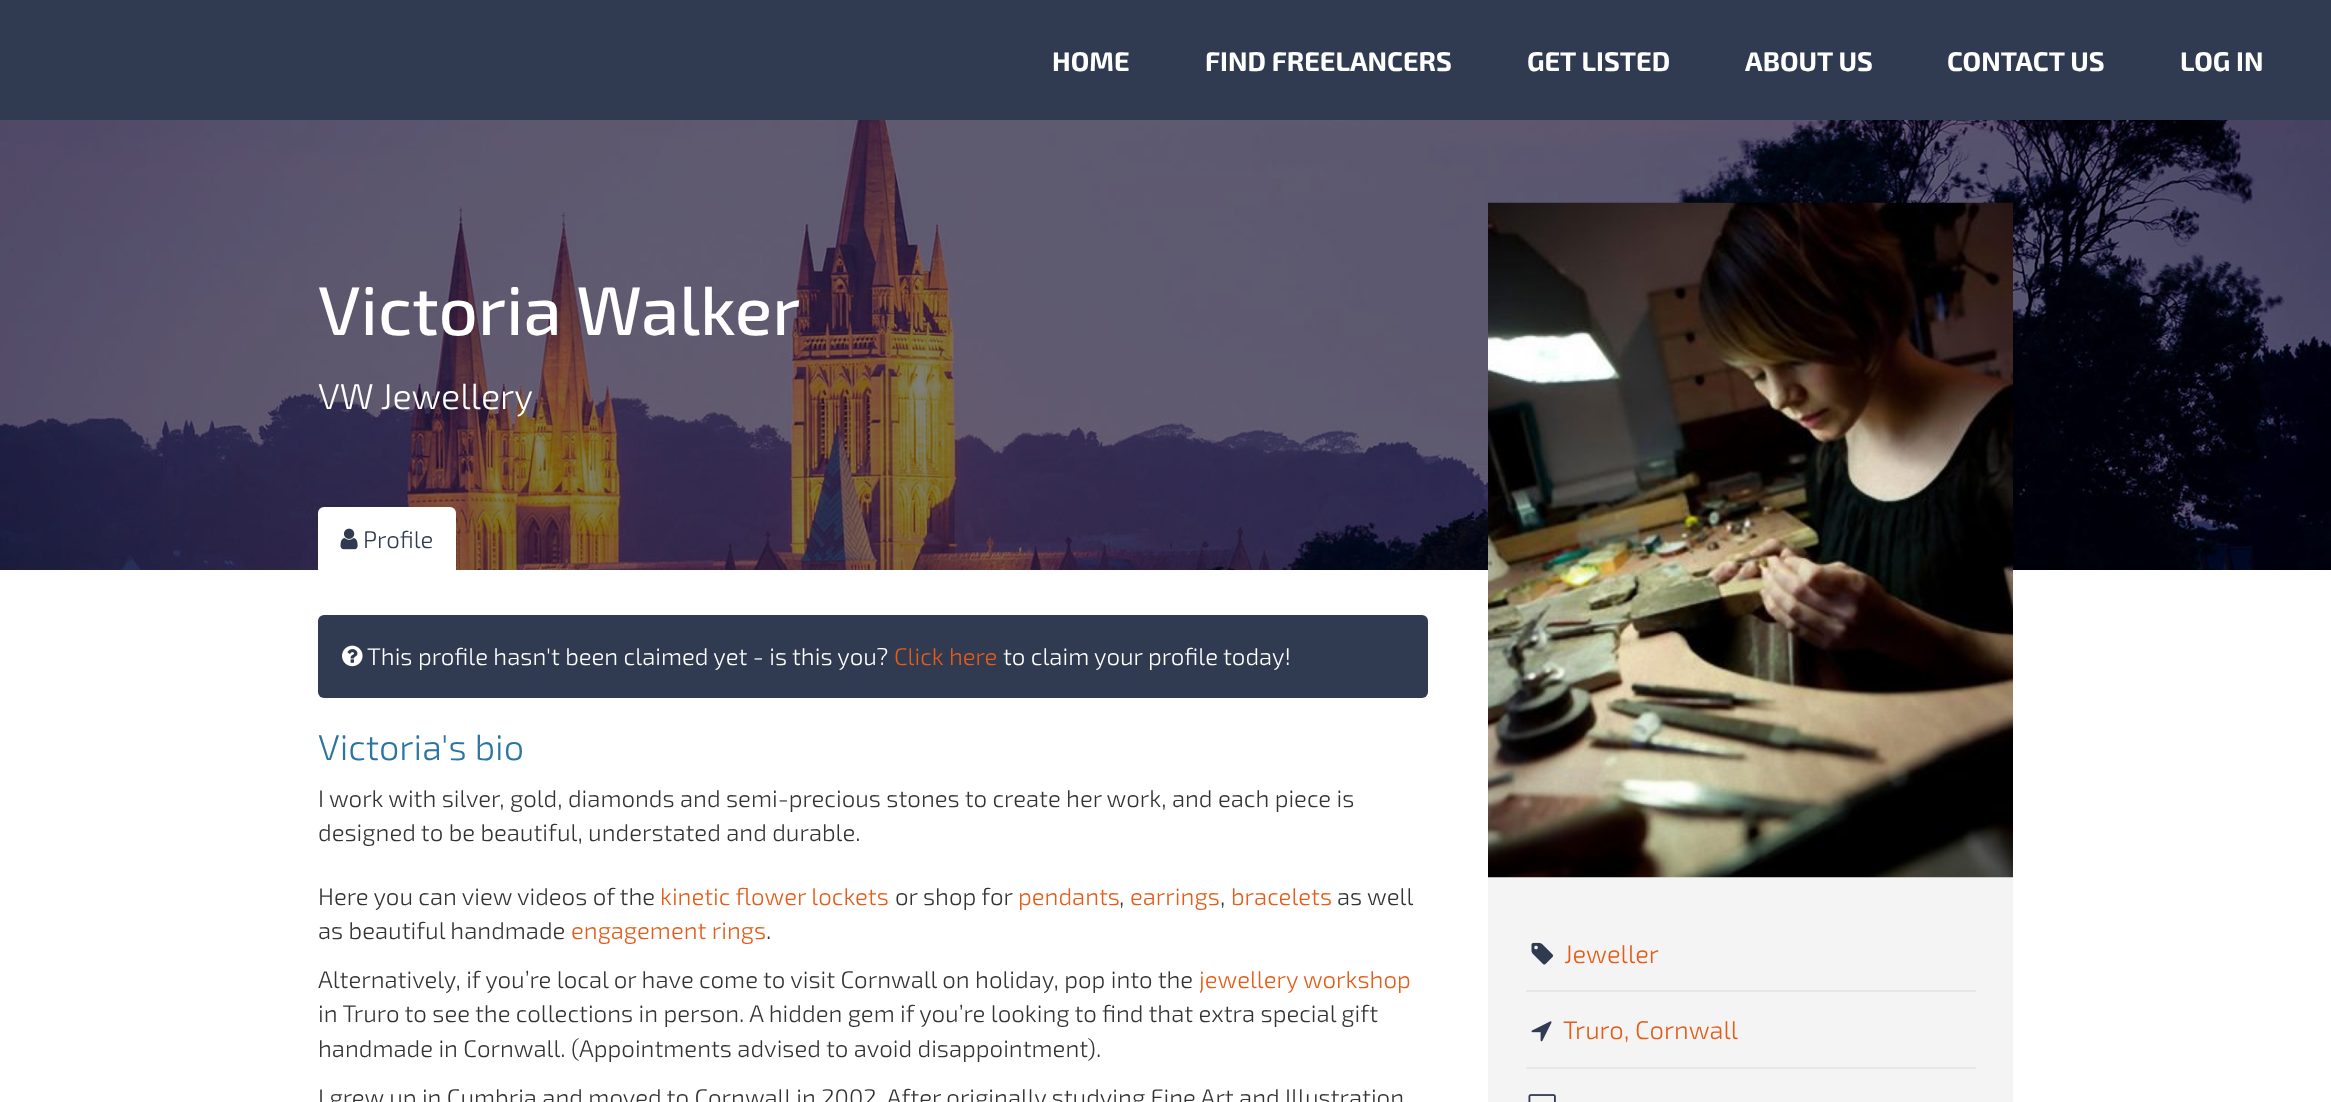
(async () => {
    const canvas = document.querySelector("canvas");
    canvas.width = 2331;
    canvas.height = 1102;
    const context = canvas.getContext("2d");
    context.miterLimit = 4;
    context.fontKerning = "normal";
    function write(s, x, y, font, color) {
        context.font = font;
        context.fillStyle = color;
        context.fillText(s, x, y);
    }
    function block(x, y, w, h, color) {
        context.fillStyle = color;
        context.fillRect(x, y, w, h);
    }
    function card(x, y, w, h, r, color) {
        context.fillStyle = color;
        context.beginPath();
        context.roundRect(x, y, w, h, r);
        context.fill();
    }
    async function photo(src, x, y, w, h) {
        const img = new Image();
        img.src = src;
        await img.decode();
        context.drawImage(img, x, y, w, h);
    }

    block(0, 0, 2331, 1102, "rgb(255, 255, 255)");
    block(0, 0, 2331, 120, "rgb(48, 58, 81)");
    write("HOME", 1052, 71, "bold 27px 'Exo 2'", "rgb(255, 255, 255)");
    write("FIND FREELANCERS", 1205, 71, "bold 27px 'Exo 2'", "rgb(255, 255, 255)");
    write("GET LISTED", 1527, 71, "bold 27px 'Exo 2'", "rgb(255, 255, 255)");
    write("ABOUT US", 1745, 71, "bold 27px 'Exo 2'", "rgb(255, 255, 255)");
    write("CONTACT US", 1947, 71, "bold 27px 'Exo 2'", "rgb(255, 255, 255)");
    write("LOG IN", 2180, 71, "bold 27px 'Exo 2'", "rgb(255, 255, 255)");
    await photo("media/1.png", 0, 120, 2331, 450);
    write("Victoria Walker", 318, 335, "500 69px 'Exo 2'", "rgb(255, 255, 255)");
    write("VW Jewellery", 318, 409, "300 36px 'Exo 2'", "rgb(255, 255, 255)");
    context.beginPath();
    context.roundRect(318, 507, 138, 65, [6, 6, 0, 0]);
    context.fill();
    await photo("media/2.png", 340, 528, 18, 22);
    write("Profile", 363, 548, "300 24px 'Exo 2'", "rgb(48, 58, 81)");
    card(318, 615, 1110, 83, 6, "rgb(48, 58, 81)");
    await photo("media/3.png", 342, 645, 21, 22);
    write("This profile hasn't been claimed yet - is this you?", 367, 665, "300 24px 'Exo 2'", "rgb(255, 255, 255)");
    write("Click here", 894, 665, "300 24px 'Exo 2'", "rgb(228, 92, 24)");
    write("to claim your profile today!", 1003, 665, "300 24px 'Exo 2'", "rgb(255, 255, 255)");
    write("Victoria", 318, 760, "300 36px 'Exo 2'", "rgb(43, 117, 162)");
    write("'s bio", 441, 760, "300 36px 'Exo 2'", "rgb(43, 117, 162)");
    write("I work with silver, gold, diamonds and semi-precious stones to create her work, and each piece is", 318, 807, "300 24px 'Exo 2'", "rgb(51, 51, 51)");
    write("designed to be beautiful, understated and durable.", 318, 841, "300 24px 'Exo 2'", "rgb(51, 51, 51)");
    write("Here you can view videos of the", 318, 905, "300 24px 'Exo 2'", "rgb(51, 51, 51)");
    write("kinetic flower lockets", 660, 905, "300 24px 'Exo 2'", "rgb(228, 92, 24)");
    write("or shop for", 895, 905, "300 24px 'Exo 2'", "rgb(51, 51, 51)");
    write("pendants", 1018, 905, "300 24px 'Exo 2'", "rgb(228, 92, 24)");
    write(",", 1119, 905, "300 24px 'Exo 2'", "rgb(51, 51, 51)");
    write("earrings", 1130, 905, "300 24px 'Exo 2'", "rgb(228, 92, 24)");
    write(",", 1220, 905, "300 24px 'Exo 2'", "rgb(51, 51, 51)");
    write("bracelets", 1231, 905, "300 24px 'Exo 2'", "rgb(228, 92, 24)");
    write("as well", 1337, 905, "300 24px 'Exo 2'", "rgb(51, 51, 51)");
    write("as beautiful handmade", 318, 939, "300 24px 'Exo 2'", "rgb(51, 51, 51)");
    write("engagement rings", 571, 939, "300 24px 'Exo 2'", "rgb(228, 92, 24)");
    write(".", 766, 939, "300 24px 'Exo 2'", "rgb(51, 51, 51)");
    write("Alternatively, if you’re local or have come to visit Cornwall on holiday, pop into the", 318, 988, "300 24px 'Exo 2'", "rgb(51, 51, 51)");
    write("jewellery workshop", 1199, 988, "300 24px 'Exo 2'", "rgb(228, 92, 24)");
    write("in Truro to see the collections in person. A hidden gem if you’re looking to find that extra special gift", 318, 1022, "300 24px 'Exo 2'", "rgb(51, 51, 51)");
    write("handmade in Cornwall. (Appointments advised to avoid disappointment).", 318, 1057, "300 24px 'Exo 2'", "rgb(51, 51, 51)");
    write("I grew up in Cumbria and moved to Cornwall in 2002. After originally studying Fine Art and Illustration", 318, 1106, "300 24px 'Exo 2'", "rgb(51, 51, 51)");
    block(1488, 877, 525, 225, "rgb(244, 244, 244)");
    await photo("media/4.png", 1488, 202, 525, 676);
    block(1526, 990, 450, 2, "rgb(231, 231, 231)");
    await photo("media/5.png", 1531, 942, 22, 23);
    write("Jeweller", 1564, 963, "300 25.5px 'Exo 2'", "rgb(228, 92, 24)");
    block(1526, 1067, 450, 2, "rgb(231, 231, 231)");
    await photo("media/6.png", 1531, 1021, 21, 21);
    write("Truro, Cornwall", 1563, 1039, "300 25.5px 'Exo 2'", "rgb(228, 92, 24)");
    await photo("media/7.png", 1528, 1094, 28, 8);
})();
